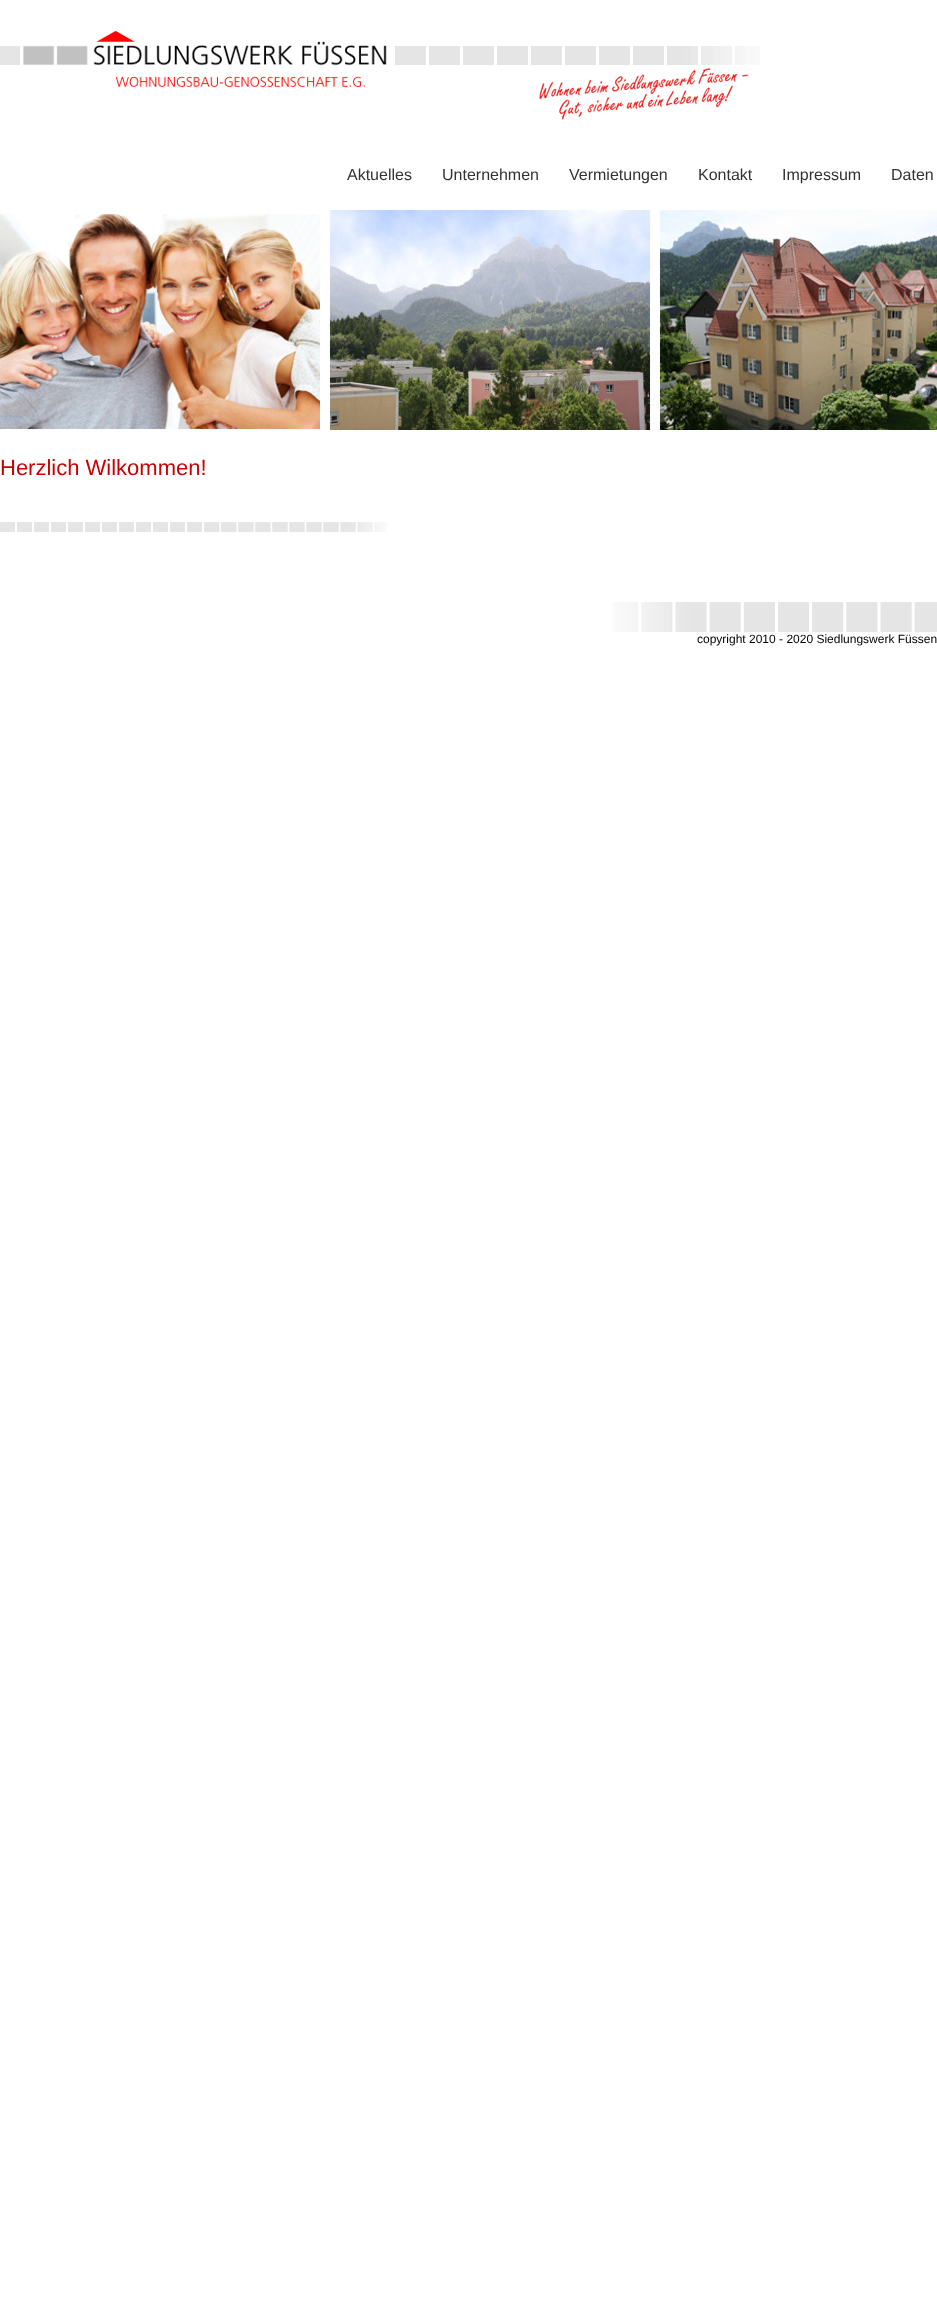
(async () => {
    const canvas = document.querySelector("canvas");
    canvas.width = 937;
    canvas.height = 2304;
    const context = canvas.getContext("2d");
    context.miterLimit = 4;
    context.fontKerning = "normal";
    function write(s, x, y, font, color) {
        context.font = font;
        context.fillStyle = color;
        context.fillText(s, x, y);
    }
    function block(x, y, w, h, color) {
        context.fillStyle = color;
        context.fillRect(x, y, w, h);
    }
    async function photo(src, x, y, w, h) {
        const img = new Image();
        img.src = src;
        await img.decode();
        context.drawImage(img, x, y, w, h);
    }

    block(0, 0, 937, 2304, "rgb(255, 255, 255)");
    await photo("media/1.png", 0, 31, 760, 89);
    write("Aktuelles", 347, 180, "16px Liberation Sans", "rgb(51, 51, 51)");
    write("Unternehmen", 442, 180, "16px Liberation Sans", "rgb(51, 51, 51)");
    write("Vermietungen", 569, 180, "16px Liberation Sans", "rgb(51, 51, 51)");
    write("Kontakt", 698, 180, "16px Liberation Sans", "rgb(51, 51, 51)");
    write("Impressum", 782, 180, "16px Liberation Sans", "rgb(51, 51, 51)");
    write("Daten", 891, 180, "16px Liberation Sans", "rgb(51, 51, 51)");
    await photo("media/2.png", 0, 210, 937, 220);
    write("Herzlich Wilkommen!", 0, 475, "22px Liberation Sans", "rgb(204, 0, 0)");
    await photo("media/3.png", 0, 522, 387, 10);
    await photo("media/4.png", 613, 602, 324, 30);
    write("copyright 2010 - 2020 Siedlungswerk Füssen", 697, 643, "12px Liberation Sans", "rgb(0, 0, 0)");
})();
